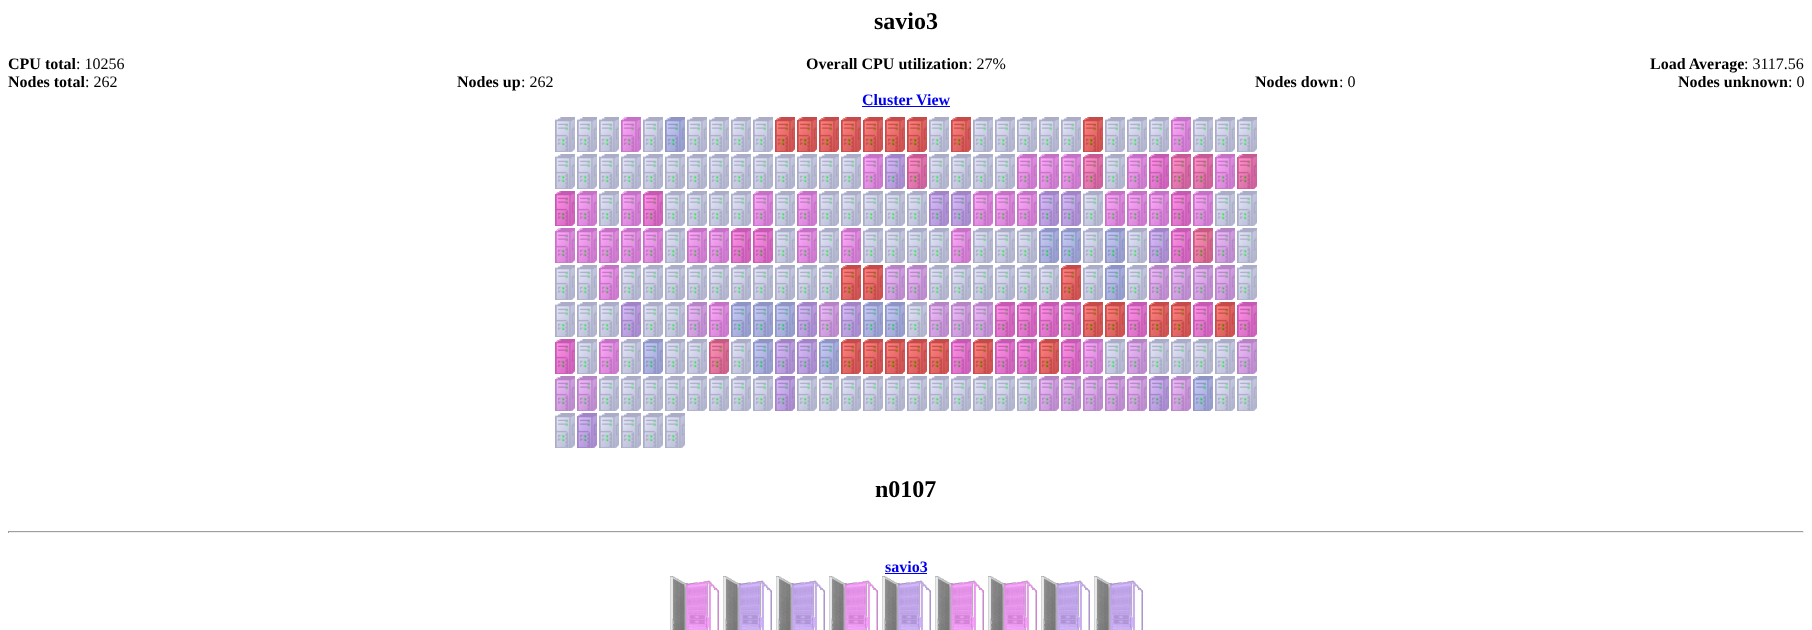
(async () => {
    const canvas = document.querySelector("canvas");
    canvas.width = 1812;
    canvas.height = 630;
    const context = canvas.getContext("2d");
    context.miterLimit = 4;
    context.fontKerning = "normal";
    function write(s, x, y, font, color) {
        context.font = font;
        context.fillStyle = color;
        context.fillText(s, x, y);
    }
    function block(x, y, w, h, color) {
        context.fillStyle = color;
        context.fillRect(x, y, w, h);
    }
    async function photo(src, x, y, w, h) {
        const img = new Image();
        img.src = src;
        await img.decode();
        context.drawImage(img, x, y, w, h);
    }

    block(0, 0, 1812, 630, "rgb(255, 255, 255)");
    write("savio3", 874, 29, "bold 24px Liberation Serif", "rgb(0, 0, 0)");
    write("CPU total", 8, 69, "bold 16px Liberation Serif", "rgb(0, 0, 0)");
    write(": 10256", 76, 69, "16px Liberation Serif", "rgb(0, 0, 0)");
    write("Overall CPU utilization", 806, 69, "bold 16px Liberation Serif", "rgb(0, 0, 0)");
    write(": 27%", 968, 69, "16px Liberation Serif", "rgb(0, 0, 0)");
    write("Load Average", 1650, 69, "bold 16px Liberation Serif", "rgb(0, 0, 0)");
    write(": 3117.56", 1744, 69, "16px Liberation Serif", "rgb(0, 0, 0)");
    write("Nodes total", 8, 87, "bold 16px Liberation Serif", "rgb(0, 0, 0)");
    write(": 262", 85, 87, "16px Liberation Serif", "rgb(0, 0, 0)");
    write("Nodes up", 457, 87, "bold 16px Liberation Serif", "rgb(0, 0, 0)");
    write(": 262", 521, 87, "16px Liberation Serif", "rgb(0, 0, 0)");
    write("Nodes down", 1255, 87, "bold 16px Liberation Serif", "rgb(0, 0, 0)");
    write(": 0", 1339, 87, "16px Liberation Serif", "rgb(0, 0, 0)");
    write("Nodes unknown", 1678, 87, "bold 16px Liberation Serif", "rgb(0, 0, 0)");
    write(": 0", 1788, 87, "16px Liberation Serif", "rgb(0, 0, 0)");
    write("Cluster View", 862, 105, "bold 16px Liberation Serif", "rgb(0, 0, 238)");
    block(862, 106, 88, 1, "rgb(0, 0, 238)");
    await photo("media/1.png", 555, 117, 20, 35);
    await photo("media/1.png", 577, 117, 20, 35);
    await photo("media/1.png", 599, 117, 20, 35);
    await photo("media/2.png", 621, 117, 20, 35);
    await photo("media/1.png", 643, 117, 20, 35);
    await photo("media/3.png", 665, 117, 20, 35);
    await photo("media/1.png", 687, 117, 20, 35);
    await photo("media/1.png", 709, 117, 20, 35);
    await photo("media/1.png", 731, 117, 20, 35);
    await photo("media/1.png", 753, 117, 20, 35);
    await photo("media/4.png", 775, 117, 20, 35);
    await photo("media/4.png", 797, 117, 20, 35);
    await photo("media/4.png", 819, 117, 20, 35);
    await photo("media/4.png", 841, 117, 20, 35);
    await photo("media/4.png", 863, 117, 20, 35);
    await photo("media/4.png", 885, 117, 20, 35);
    await photo("media/4.png", 907, 117, 20, 35);
    await photo("media/1.png", 929, 117, 20, 35);
    await photo("media/4.png", 951, 117, 20, 35);
    await photo("media/1.png", 973, 117, 20, 35);
    await photo("media/1.png", 995, 117, 20, 35);
    await photo("media/1.png", 1017, 117, 20, 35);
    await photo("media/1.png", 1039, 117, 20, 35);
    await photo("media/1.png", 1061, 117, 20, 35);
    await photo("media/4.png", 1083, 117, 20, 35);
    await photo("media/1.png", 1105, 117, 20, 35);
    await photo("media/1.png", 1127, 117, 20, 35);
    await photo("media/1.png", 1149, 117, 20, 35);
    await photo("media/2.png", 1171, 117, 20, 35);
    await photo("media/1.png", 1193, 117, 20, 35);
    await photo("media/1.png", 1215, 117, 20, 35);
    await photo("media/1.png", 1237, 117, 20, 35);
    await photo("media/1.png", 555, 154, 20, 35);
    await photo("media/1.png", 577, 154, 20, 35);
    await photo("media/1.png", 599, 154, 20, 35);
    await photo("media/1.png", 621, 154, 20, 35);
    await photo("media/1.png", 643, 154, 20, 35);
    await photo("media/1.png", 665, 154, 20, 35);
    await photo("media/1.png", 687, 154, 20, 35);
    await photo("media/1.png", 709, 154, 20, 35);
    await photo("media/1.png", 731, 154, 20, 35);
    await photo("media/1.png", 753, 154, 20, 35);
    await photo("media/1.png", 775, 154, 20, 35);
    await photo("media/1.png", 797, 154, 20, 35);
    await photo("media/1.png", 819, 154, 20, 35);
    await photo("media/1.png", 841, 154, 20, 35);
    await photo("media/2.png", 863, 154, 20, 35);
    await photo("media/5.png", 885, 154, 20, 35);
    await photo("media/6.png", 907, 154, 20, 35);
    await photo("media/1.png", 929, 154, 20, 35);
    await photo("media/1.png", 951, 154, 20, 35);
    await photo("media/1.png", 973, 154, 20, 35);
    await photo("media/1.png", 995, 154, 20, 35);
    await photo("media/2.png", 1017, 154, 20, 35);
    await photo("media/2.png", 1039, 154, 20, 35);
    await photo("media/2.png", 1061, 154, 20, 35);
    await photo("media/6.png", 1083, 154, 20, 35);
    await photo("media/1.png", 1105, 154, 20, 35);
    await photo("media/2.png", 1127, 154, 20, 35);
    await photo("media/7.png", 1149, 154, 20, 35);
    await photo("media/6.png", 1171, 154, 20, 35);
    await photo("media/6.png", 1193, 154, 20, 35);
    await photo("media/2.png", 1215, 154, 20, 35);
    await photo("media/6.png", 1237, 154, 20, 35);
    await photo("media/7.png", 555, 191, 20, 35);
    await photo("media/2.png", 577, 191, 20, 35);
    await photo("media/1.png", 599, 191, 20, 35);
    await photo("media/2.png", 621, 191, 20, 35);
    await photo("media/7.png", 643, 191, 20, 35);
    await photo("media/1.png", 665, 191, 20, 35);
    await photo("media/1.png", 687, 191, 20, 35);
    await photo("media/1.png", 709, 191, 20, 35);
    await photo("media/1.png", 731, 191, 20, 35);
    await photo("media/2.png", 753, 191, 20, 35);
    await photo("media/1.png", 775, 191, 20, 35);
    await photo("media/2.png", 797, 191, 20, 35);
    await photo("media/1.png", 819, 191, 20, 35);
    await photo("media/1.png", 841, 191, 20, 35);
    await photo("media/1.png", 863, 191, 20, 35);
    await photo("media/1.png", 885, 191, 20, 35);
    await photo("media/1.png", 907, 191, 20, 35);
    await photo("media/5.png", 929, 191, 20, 35);
    await photo("media/5.png", 951, 191, 20, 35);
    await photo("media/2.png", 973, 191, 20, 35);
    await photo("media/2.png", 995, 191, 20, 35);
    await photo("media/2.png", 1017, 191, 20, 35);
    await photo("media/5.png", 1039, 191, 20, 35);
    await photo("media/5.png", 1061, 191, 20, 35);
    await photo("media/1.png", 1083, 191, 20, 35);
    await photo("media/2.png", 1105, 191, 20, 35);
    await photo("media/2.png", 1127, 191, 20, 35);
    await photo("media/2.png", 1149, 191, 20, 35);
    await photo("media/7.png", 1171, 191, 20, 35);
    await photo("media/2.png", 1193, 191, 20, 35);
    await photo("media/1.png", 1215, 191, 20, 35);
    await photo("media/1.png", 1237, 191, 20, 35);
    await photo("media/2.png", 555, 228, 20, 35);
    await photo("media/2.png", 577, 228, 20, 35);
    await photo("media/2.png", 599, 228, 20, 35);
    await photo("media/2.png", 621, 228, 20, 35);
    await photo("media/2.png", 643, 228, 20, 35);
    await photo("media/1.png", 665, 228, 20, 35);
    await photo("media/2.png", 687, 228, 20, 35);
    await photo("media/2.png", 709, 228, 20, 35);
    await photo("media/7.png", 731, 228, 20, 35);
    await photo("media/7.png", 753, 228, 20, 35);
    await photo("media/1.png", 775, 228, 20, 35);
    await photo("media/2.png", 797, 228, 20, 35);
    await photo("media/1.png", 819, 228, 20, 35);
    await photo("media/2.png", 841, 228, 20, 35);
    await photo("media/1.png", 863, 228, 20, 35);
    await photo("media/1.png", 885, 228, 20, 35);
    await photo("media/1.png", 907, 228, 20, 35);
    await photo("media/1.png", 929, 228, 20, 35);
    await photo("media/2.png", 951, 228, 20, 35);
    await photo("media/1.png", 973, 228, 20, 35);
    await photo("media/1.png", 995, 228, 20, 35);
    await photo("media/1.png", 1017, 228, 20, 35);
    await photo("media/3.png", 1039, 228, 20, 35);
    await photo("media/3.png", 1061, 228, 20, 35);
    await photo("media/1.png", 1083, 228, 20, 35);
    await photo("media/3.png", 1105, 228, 20, 35);
    await photo("media/1.png", 1127, 228, 20, 35);
    await photo("media/5.png", 1149, 228, 20, 35);
    await photo("media/7.png", 1171, 228, 20, 35);
    await photo("media/8.png", 1193, 228, 20, 35);
    await photo("media/9.png", 1215, 228, 20, 35);
    await photo("media/1.png", 1237, 228, 20, 35);
    await photo("media/1.png", 555, 265, 20, 35);
    await photo("media/1.png", 577, 265, 20, 35);
    await photo("media/2.png", 599, 265, 20, 35);
    await photo("media/1.png", 621, 265, 20, 35);
    await photo("media/1.png", 643, 265, 20, 35);
    await photo("media/1.png", 665, 265, 20, 35);
    await photo("media/1.png", 687, 265, 20, 35);
    await photo("media/1.png", 709, 265, 20, 35);
    await photo("media/1.png", 731, 265, 20, 35);
    await photo("media/1.png", 753, 265, 20, 35);
    await photo("media/1.png", 775, 265, 20, 35);
    await photo("media/1.png", 797, 265, 20, 35);
    await photo("media/1.png", 819, 265, 20, 35);
    await photo("media/4.png", 841, 265, 20, 35);
    await photo("media/4.png", 863, 265, 20, 35);
    await photo("media/9.png", 885, 265, 20, 35);
    await photo("media/9.png", 907, 265, 20, 35);
    await photo("media/1.png", 929, 265, 20, 35);
    await photo("media/1.png", 951, 265, 20, 35);
    await photo("media/1.png", 973, 265, 20, 35);
    await photo("media/1.png", 995, 265, 20, 35);
    await photo("media/1.png", 1017, 265, 20, 35);
    await photo("media/1.png", 1039, 265, 20, 35);
    await photo("media/4.png", 1061, 265, 20, 35);
    await photo("media/1.png", 1083, 265, 20, 35);
    await photo("media/3.png", 1105, 265, 20, 35);
    await photo("media/1.png", 1127, 265, 20, 35);
    await photo("media/9.png", 1149, 265, 20, 35);
    await photo("media/9.png", 1171, 265, 20, 35);
    await photo("media/9.png", 1193, 265, 20, 35);
    await photo("media/9.png", 1215, 265, 20, 35);
    await photo("media/1.png", 1237, 265, 20, 35);
    await photo("media/1.png", 555, 302, 20, 35);
    await photo("media/1.png", 577, 302, 20, 35);
    await photo("media/1.png", 599, 302, 20, 35);
    await photo("media/5.png", 621, 302, 20, 35);
    await photo("media/1.png", 643, 302, 20, 35);
    await photo("media/1.png", 665, 302, 20, 35);
    await photo("media/9.png", 687, 302, 20, 35);
    await photo("media/2.png", 709, 302, 20, 35);
    await photo("media/3.png", 731, 302, 20, 35);
    await photo("media/3.png", 753, 302, 20, 35);
    await photo("media/3.png", 775, 302, 20, 35);
    await photo("media/5.png", 797, 302, 20, 35);
    await photo("media/9.png", 819, 302, 20, 35);
    await photo("media/5.png", 841, 302, 20, 35);
    await photo("media/3.png", 863, 302, 20, 35);
    await photo("media/3.png", 885, 302, 20, 35);
    await photo("media/1.png", 907, 302, 20, 35);
    await photo("media/9.png", 929, 302, 20, 35);
    await photo("media/9.png", 951, 302, 20, 35);
    await photo("media/9.png", 973, 302, 20, 35);
    await photo("media/7.png", 995, 302, 20, 35);
    await photo("media/7.png", 1017, 302, 20, 35);
    await photo("media/7.png", 1039, 302, 20, 35);
    await photo("media/7.png", 1061, 302, 20, 35);
    await photo("media/4.png", 1083, 302, 20, 35);
    await photo("media/4.png", 1105, 302, 20, 35);
    await photo("media/7.png", 1127, 302, 20, 35);
    await photo("media/4.png", 1149, 302, 20, 35);
    await photo("media/4.png", 1171, 302, 20, 35);
    await photo("media/7.png", 1193, 302, 20, 35);
    await photo("media/4.png", 1215, 302, 20, 35);
    await photo("media/7.png", 1237, 302, 20, 35);
    await photo("media/7.png", 555, 339, 20, 35);
    await photo("media/1.png", 577, 339, 20, 35);
    await photo("media/2.png", 599, 339, 20, 35);
    await photo("media/1.png", 621, 339, 20, 35);
    await photo("media/3.png", 643, 339, 20, 35);
    await photo("media/1.png", 665, 339, 20, 35);
    await photo("media/1.png", 687, 339, 20, 35);
    await photo("media/8.png", 709, 339, 20, 35);
    await photo("media/1.png", 731, 339, 20, 35);
    await photo("media/3.png", 753, 339, 20, 35);
    await photo("media/5.png", 775, 339, 20, 35);
    await photo("media/5.png", 797, 339, 20, 35);
    await photo("media/3.png", 819, 339, 20, 35);
    await photo("media/4.png", 841, 339, 20, 35);
    await photo("media/4.png", 863, 339, 20, 35);
    await photo("media/4.png", 885, 339, 20, 35);
    await photo("media/4.png", 907, 339, 20, 35);
    await photo("media/4.png", 929, 339, 20, 35);
    await photo("media/7.png", 951, 339, 20, 35);
    await photo("media/4.png", 973, 339, 20, 35);
    await photo("media/7.png", 995, 339, 20, 35);
    await photo("media/7.png", 1017, 339, 20, 35);
    await photo("media/4.png", 1039, 339, 20, 35);
    await photo("media/7.png", 1061, 339, 20, 35);
    await photo("media/2.png", 1083, 339, 20, 35);
    await photo("media/1.png", 1105, 339, 20, 35);
    await photo("media/9.png", 1127, 339, 20, 35);
    await photo("media/1.png", 1149, 339, 20, 35);
    await photo("media/1.png", 1171, 339, 20, 35);
    await photo("media/1.png", 1193, 339, 20, 35);
    await photo("media/1.png", 1215, 339, 20, 35);
    await photo("media/9.png", 1237, 339, 20, 35);
    await photo("media/9.png", 555, 376, 20, 35);
    await photo("media/9.png", 577, 376, 20, 35);
    await photo("media/1.png", 599, 376, 20, 35);
    await photo("media/1.png", 621, 376, 20, 35);
    await photo("media/1.png", 643, 376, 20, 35);
    await photo("media/1.png", 665, 376, 20, 35);
    await photo("media/1.png", 687, 376, 20, 35);
    await photo("media/1.png", 709, 376, 20, 35);
    await photo("media/1.png", 731, 376, 20, 35);
    await photo("media/1.png", 753, 376, 20, 35);
    await photo("media/5.png", 775, 376, 20, 35);
    await photo("media/1.png", 797, 376, 20, 35);
    await photo("media/1.png", 819, 376, 20, 35);
    await photo("media/1.png", 841, 376, 20, 35);
    await photo("media/1.png", 863, 376, 20, 35);
    await photo("media/1.png", 885, 376, 20, 35);
    await photo("media/1.png", 907, 376, 20, 35);
    await photo("media/1.png", 929, 376, 20, 35);
    await photo("media/1.png", 951, 376, 20, 35);
    await photo("media/1.png", 973, 376, 20, 35);
    await photo("media/1.png", 995, 376, 20, 35);
    await photo("media/1.png", 1017, 376, 20, 35);
    await photo("media/9.png", 1039, 376, 20, 35);
    await photo("media/9.png", 1061, 376, 20, 35);
    await photo("media/9.png", 1083, 376, 20, 35);
    await photo("media/9.png", 1105, 376, 20, 35);
    await photo("media/9.png", 1127, 376, 20, 35);
    await photo("media/5.png", 1149, 376, 20, 35);
    await photo("media/9.png", 1171, 376, 20, 35);
    await photo("media/3.png", 1193, 376, 20, 35);
    await photo("media/1.png", 1215, 376, 20, 35);
    await photo("media/1.png", 1237, 376, 20, 35);
    await photo("media/1.png", 555, 413, 20, 35);
    await photo("media/5.png", 577, 413, 20, 35);
    await photo("media/1.png", 599, 413, 20, 35);
    await photo("media/1.png", 621, 413, 20, 35);
    await photo("media/1.png", 643, 413, 20, 35);
    await photo("media/1.png", 665, 413, 20, 35);
    write("n0107", 875, 497, "bold 24px Liberation Serif", "rgb(0, 0, 0)");
    block(8, 531, 1796, 1, "rgb(159, 159, 159)");
    block(1803, 531, 1, 2, "rgb(238, 238, 238)");
    block(8, 532, 1796, 1, "rgb(238, 238, 238)");
    block(8, 531, 1, 2, "rgb(159, 159, 159)");
    write("savio3", 885, 572, "bold 16px Liberation Serif", "rgb(0, 0, 238)");
    block(885, 573, 42, 1, "rgb(0, 0, 238)");
    await photo("media/10.png", 670, 576, 49, 54);
    await photo("media/11.png", 723, 576, 49, 54);
    await photo("media/11.png", 776, 576, 49, 54);
    await photo("media/10.png", 829, 576, 49, 54);
    await photo("media/11.png", 882, 576, 49, 54);
    await photo("media/10.png", 935, 576, 49, 54);
    await photo("media/10.png", 988, 576, 49, 54);
    await photo("media/11.png", 1041, 576, 49, 54);
    await photo("media/11.png", 1094, 576, 49, 54);
})();
